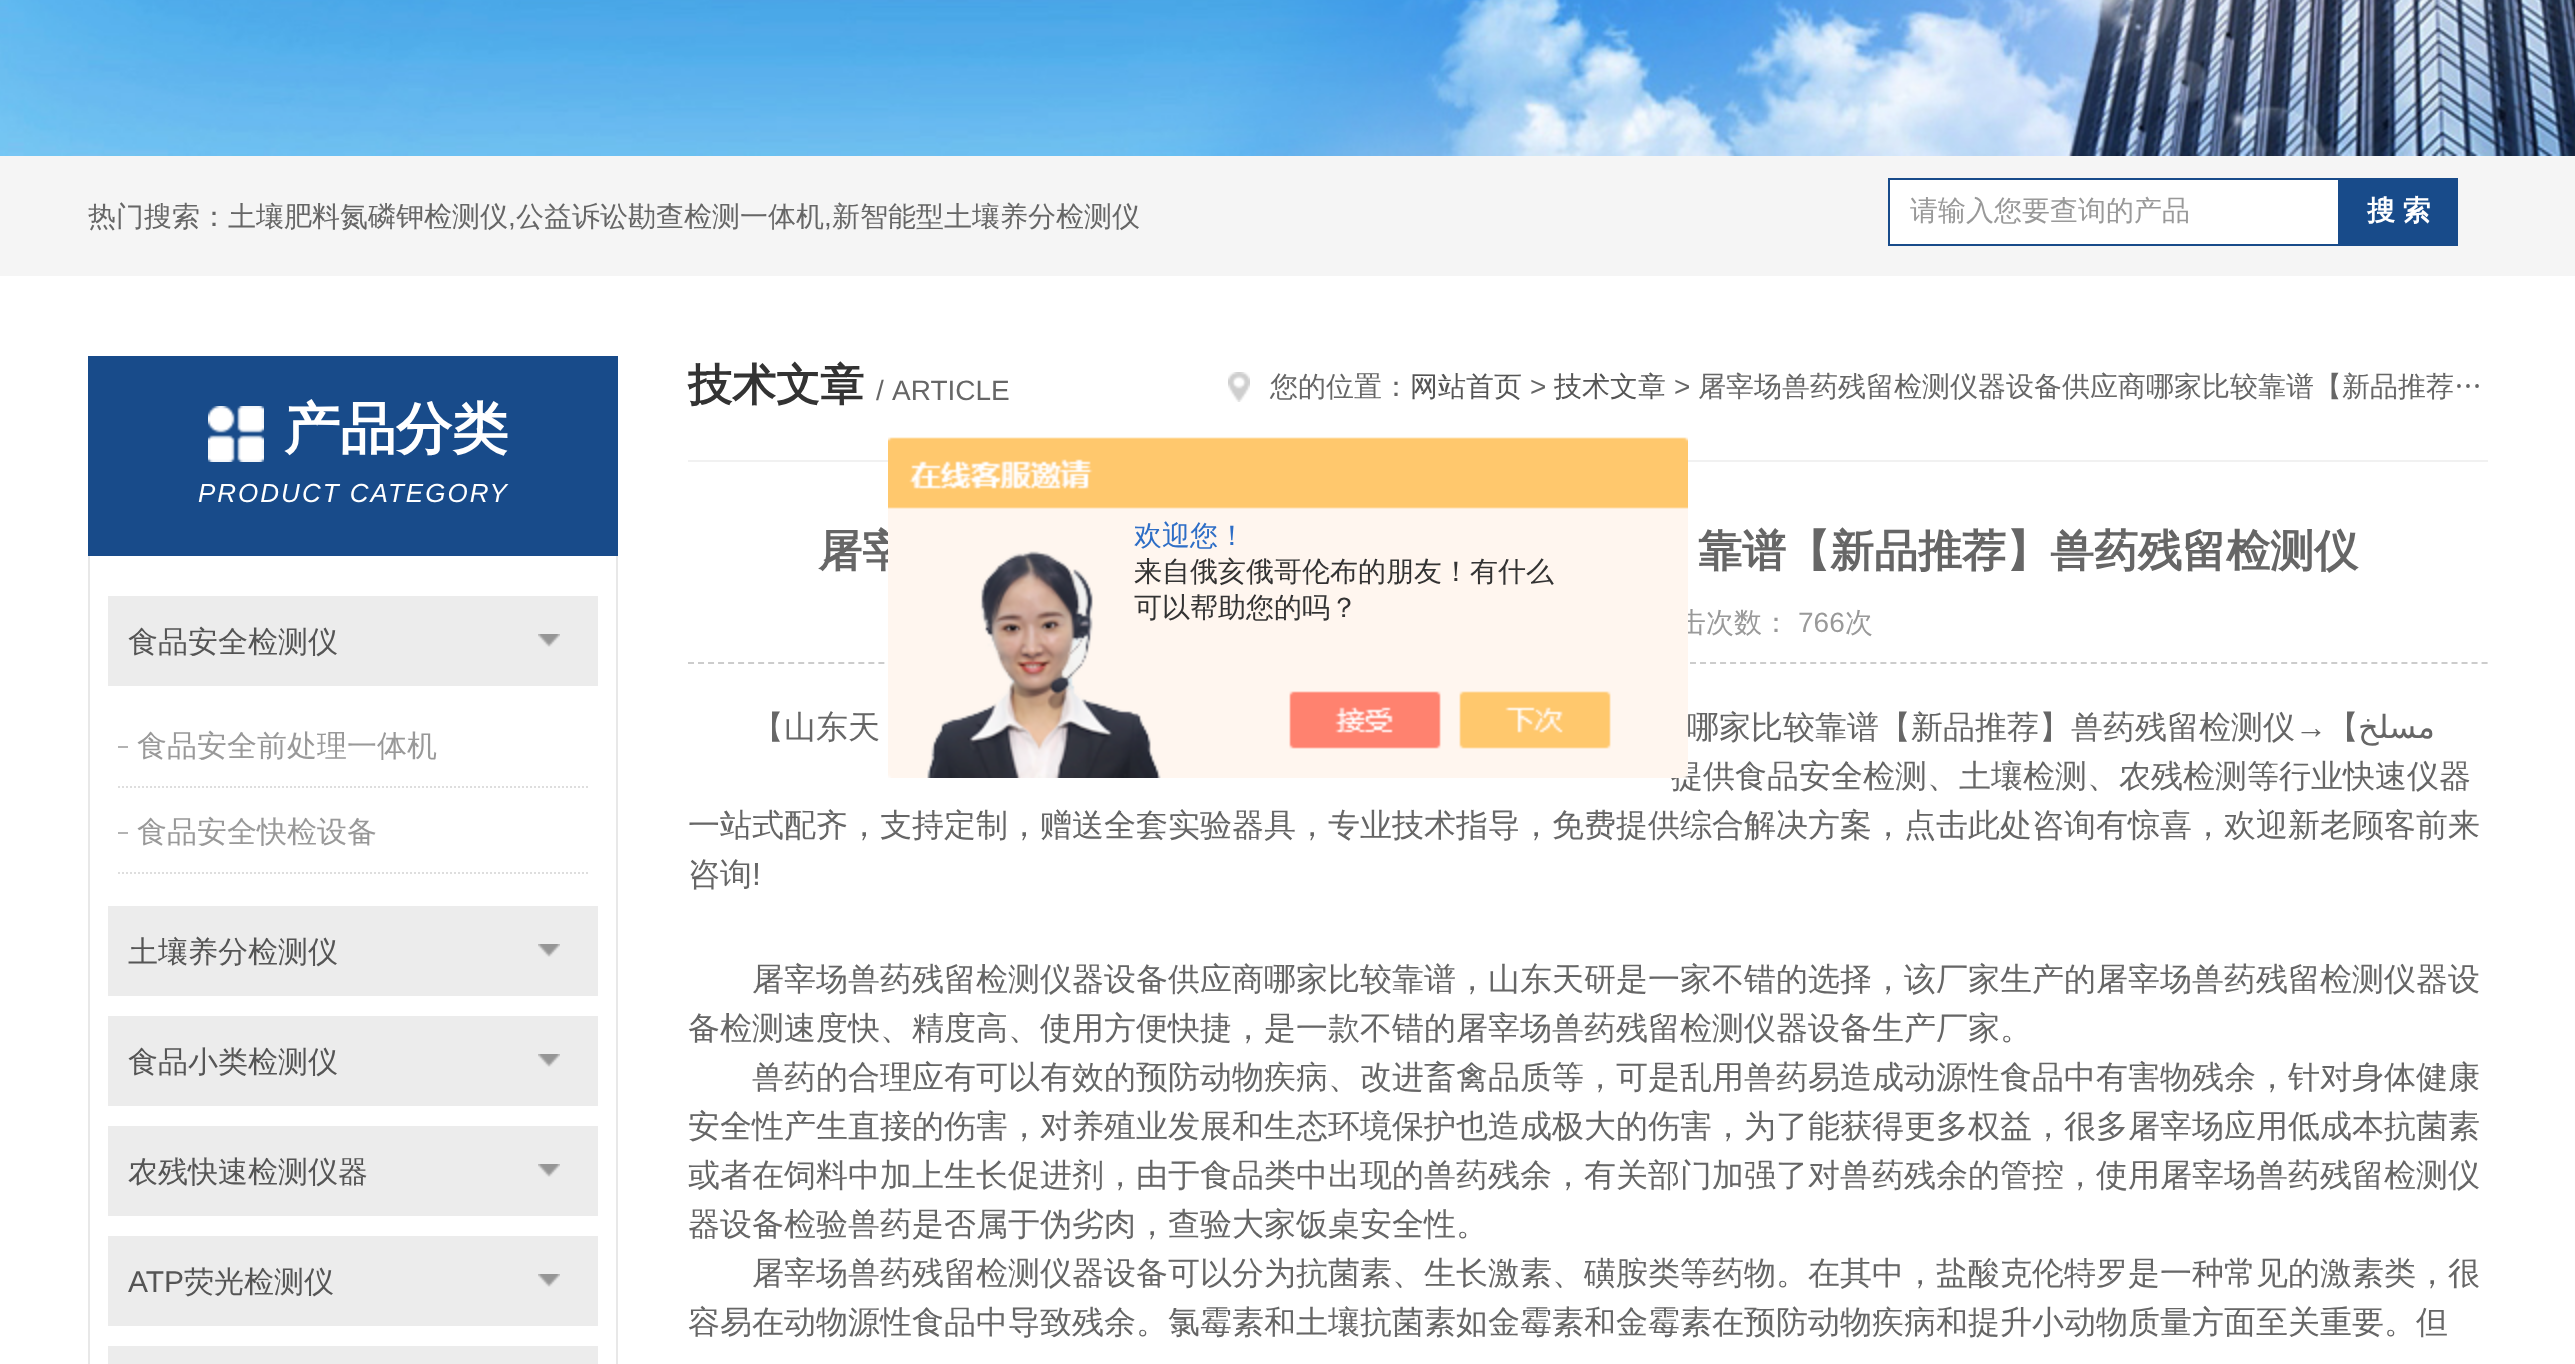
(async () => {
    const canvas = document.querySelector("canvas");
    canvas.width = 2575;
    canvas.height = 1364;
    const context = canvas.getContext("2d");
    context.miterLimit = 4;
    context.fontKerning = "normal";
    function write(s, x, y, font, color) {
        context.font = font;
        context.fillStyle = color;
        context.fillText(s, x, y);
    }
    function block(x, y, w, h, color) {
        context.fillStyle = color;
        context.fillRect(x, y, w, h);
    }
    async function photo(src, x, y, w, h) {
        const img = new Image();
        img.src = src;
        await img.decode();
        context.drawImage(img, x, y, w, h);
    }

    block(0, 0, 2575, 1364, "rgb(255, 255, 255)");
    await photo("media/1.png", 0, 0, 2575, 156);
    block(0, 156, 2575, 120, "rgb(245, 245, 245)");
    write("热门搜索：土壤肥料氮磷钾检测仪", 88, 226, "500 28px WenQuanYi Zen Hei", "rgb(102, 102, 102)");
    write(",", 508, 226, "28px Liberation Sans", "rgb(102, 102, 102)");
    write("公益诉讼勘查检测一体机", 516, 226, "500 28px WenQuanYi Zen Hei", "rgb(102, 102, 102)");
    write(",", 824, 226, "28px Liberation Sans", "rgb(102, 102, 102)");
    write("新智能型土壤养分检测仪", 832, 226, "500 28px WenQuanYi Zen Hei", "rgb(102, 102, 102)");
    block(1890, 180, 448, 64, "rgb(255, 255, 255)");
    block(1888, 178, 450, 2, "rgb(24, 75, 138)");
    block(1888, 244, 450, 2, "rgb(24, 75, 138)");
    block(1888, 178, 2, 68, "rgb(24, 75, 138)");
    write("请输入您要查询的产品", 1910, 220, "500 28px WenQuanYi Zen Hei", "rgb(153, 153, 153)");
    block(2338, 178, 120, 68, "rgb(24, 75, 138)");
    context.wordSpacing = "-1px";
    write("搜 索", 2367, 220, "bold 28px WenQuanYi Zen Hei", "rgb(255, 255, 255)");
    block(88, 356, 530, 200, "rgb(24, 75, 138)");
    await photo("media/2.png", 208, 406, 56, 56);
    context.wordSpacing = "0px";
    write("产品分类", 284, 448, "bold 56px WenQuanYi Zen Hei", "rgb(255, 255, 255)");
    context.letterSpacing = "2px";
    write("PRODUCT CATEGORY", 198, 502, "italic 26px Liberation Sans", "rgb(255, 255, 255)");
    block(616, 556, 2, 808, "rgb(232, 232, 232)");
    block(88, 556, 2, 808, "rgb(232, 232, 232)");
    block(108, 596, 490, 90, "rgb(236, 236, 236)");
    context.letterSpacing = "0px";
    write("食品安全检测仪", 128, 652, "500 30px WenQuanYi Zen Hei", "rgb(85, 85, 85)");
    await photo("media/3.png", 538, 634, 22, 13);
    context.beginPath();
    context.moveTo(118, 787);
    context.lineTo(588, 787);
    context.strokeStyle = "rgb(222, 222, 222)";
    context.lineWidth = 2;
    context.setLineDash([2, 2]);
    context.stroke();
    block(118, 746, 10, 2, "rgb(179, 179, 179)");
    write("食品安全前处理一体机", 137, 756, "500 30px WenQuanYi Zen Hei", "rgb(153, 153, 153)");
    context.beginPath();
    context.moveTo(118, 873);
    context.lineTo(588, 873);
    context.stroke();
    block(118, 832, 10, 2, "rgb(179, 179, 179)");
    write("食品安全快检设备", 137, 842, "500 30px WenQuanYi Zen Hei", "rgb(153, 153, 153)");
    block(108, 906, 490, 90, "rgb(236, 236, 236)");
    write("土壤养分检测仪", 128, 962, "500 30px WenQuanYi Zen Hei", "rgb(85, 85, 85)");
    await photo("media/3.png", 538, 944, 22, 13);
    block(108, 1016, 490, 90, "rgb(236, 236, 236)");
    write("食品小类检测仪", 128, 1072, "500 30px WenQuanYi Zen Hei", "rgb(85, 85, 85)");
    await photo("media/3.png", 538, 1054, 22, 13);
    block(108, 1126, 490, 90, "rgb(236, 236, 236)");
    write("农残快速检测仪器", 128, 1182, "500 30px WenQuanYi Zen Hei", "rgb(85, 85, 85)");
    await photo("media/3.png", 538, 1164, 22, 13);
    block(108, 1236, 490, 90, "rgb(236, 236, 236)");
    write("ATP", 128, 1292, "30px Liberation Sans", "rgb(85, 85, 85)");
    write("荧光检测仪", 184, 1292, "500 30px WenQuanYi Zen Hei", "rgb(85, 85, 85)");
    await photo("media/3.png", 538, 1274, 22, 13);
    block(108, 1346, 490, 18, "rgb(236, 236, 236)");
    block(688, 460, 1800, 2, "rgb(241, 241, 241)");
    write("技术文章", 688, 400, "bold 44px WenQuanYi Zen Hei", "rgb(51, 51, 51)");
    context.wordSpacing = "2px";
    write("/ ARTICLE", 876, 400, "28px Liberation Sans", "rgb(102, 102, 102)");
    await photo("media/4.png", 1228, 372, 22, 30);
    context.wordSpacing = "0px";
    write("您的位置：", 1270, 396, "500 28px WenQuanYi Zen Hei", "rgb(102, 102, 102)");
    write("网站首页", 1410, 396, "500 28px WenQuanYi Zen Hei", "rgb(85, 85, 85)");
    write(">", 1530, 396, "28px Liberation Sans", "rgb(102, 102, 102)");
    write("技术文章", 1554, 396, "500 28px WenQuanYi Zen Hei", "rgb(85, 85, 85)");
    write(">", 1674, 396, "28px Liberation Sans", "rgb(102, 102, 102)");
    write("屠宰场兽药残留检测仪器设备供应商哪家比较靠谱【新品推荐…", 1698, 396, "500 28px WenQuanYi Zen Hei", "rgb(102, 102, 102)");
    write("屠宰", 818, 566, "bold 44px WenQuanYi Zen Hei", "rgb(102, 102, 102)");
    write("靠谱【新品推荐】兽药残留检测仪", 1698, 566, "bold 44px WenQuanYi Zen Hei", "rgb(102, 102, 102)");
    context.beginPath();
    context.moveTo(688, 663);
    context.lineTo(2488, 663);
    context.strokeStyle = "rgb(204, 204, 204)";
    context.setLineDash([6, 4.02]);
    context.stroke();
    write("击次数：", 1678, 632, "500 28px WenQuanYi Zen Hei", "rgb(153, 153, 153)");
    write("766", 1798, 632, "28px Liberation Sans", "rgb(153, 153, 153)");
    write("次", 1845, 632, "500 28px WenQuanYi Zen Hei", "rgb(153, 153, 153)");
    write("【山东天", 752, 738, "500 32px WenQuanYi Zen Hei", "rgb(102, 102, 102)");
    write("哪家比较靠谱【新品推荐】兽药残留检测仪", 1687, 738, "500 32px WenQuanYi Zen Hei", "rgb(102, 102, 102)");
    write("→", 2295, 738, "32px Liberation Sans", "rgb(102, 102, 102)");
    write("【", 2327, 738, "500 32px WenQuanYi Zen Hei", "rgb(102, 102, 102)");
    context.direction = "rtl";
    write("مسلخ", 2435, 738, "32px DejaVu Sans", "rgb(102, 102, 102)");
    context.direction = "ltr";
    write("提供食品安全检测、土壤检测、农残检测等行业快速仪器", 1671, 787, "500 32px WenQuanYi Zen Hei", "rgb(102, 102, 102)");
    write("一站式配齐，支持定制，赠送全套实验器具，专业技术指导，免费提供综合解决方案，点击此处咨询有惊喜，欢迎新老顾客前来", 688, 836, "500 32px WenQuanYi Zen Hei", "rgb(102, 102, 102)");
    write("咨询", 688, 885, "500 32px WenQuanYi Zen Hei", "rgb(102, 102, 102)");
    write("!", 752, 885, "32px Liberation Sans", "rgb(102, 102, 102)");
    write("屠宰场兽药残留检测仪器设备供应商哪家比较靠谱，山东天研是一家不错的选择，该厂家生产的屠宰场兽药残留检测仪器设", 752, 990, "500 32px WenQuanYi Zen Hei", "rgb(102, 102, 102)");
    write("备检测速度快、精度高、使用方便快捷，是一款不错的屠宰场兽药残留检测仪器设备生产厂家。", 688, 1039, "500 32px WenQuanYi Zen Hei", "rgb(102, 102, 102)");
    write("兽药的合理应有可以有效的预防动物疾病、改进畜禽品质等，可是乱用兽药易造成动源性食品中有害物残余，针对身体健康", 752, 1088, "500 32px WenQuanYi Zen Hei", "rgb(102, 102, 102)");
    write("安全性产生直接的伤害，对养殖业发展和生态环境保护也造成极大的伤害，为了能获得更多权益，很多屠宰场应用低成本抗菌素", 688, 1137, "500 32px WenQuanYi Zen Hei", "rgb(102, 102, 102)");
    write("或者在饲料中加上生长促进剂，由于食品类中出现的兽药残余，有关部门加强了对兽药残余的管控，使用屠宰场兽药残留检测仪", 688, 1186, "500 32px WenQuanYi Zen Hei", "rgb(102, 102, 102)");
    write("器设备检验兽药是否属于伪劣肉，查验大家饭桌安全性。", 688, 1235, "500 32px WenQuanYi Zen Hei", "rgb(102, 102, 102)");
    write("屠宰场兽药残留检测仪器设备可以分为抗菌素、生长激素、磺胺类等药物。在其中，盐酸克伦特罗是一种常见的激素类，很", 752, 1284, "500 32px WenQuanYi Zen Hei", "rgb(102, 102, 102)");
    write("容易在动物源性食品中导致残余。氯霉素和土壤抗菌素如金霉素和金霉素在预防动物疾病和提升小动物质量方面至关重要。但", 688, 1333, "500 32px WenQuanYi Zen Hei", "rgb(102, 102, 102)");
    await photo("media/5.png", 888, 437, 800, 341);
    write("欢迎您！", 1134, 545, "500 28px WenQuanYi Zen Hei", "rgb(46, 110, 198)");
    write("来自俄亥俄哥伦布的朋友！有什么", 1134, 581, "500 28px WenQuanYi Zen Hei", "rgb(51, 51, 51)");
    write("可以帮助您的吗？", 1134, 617, "500 28px WenQuanYi Zen Hei", "rgb(51, 51, 51)");
})();
